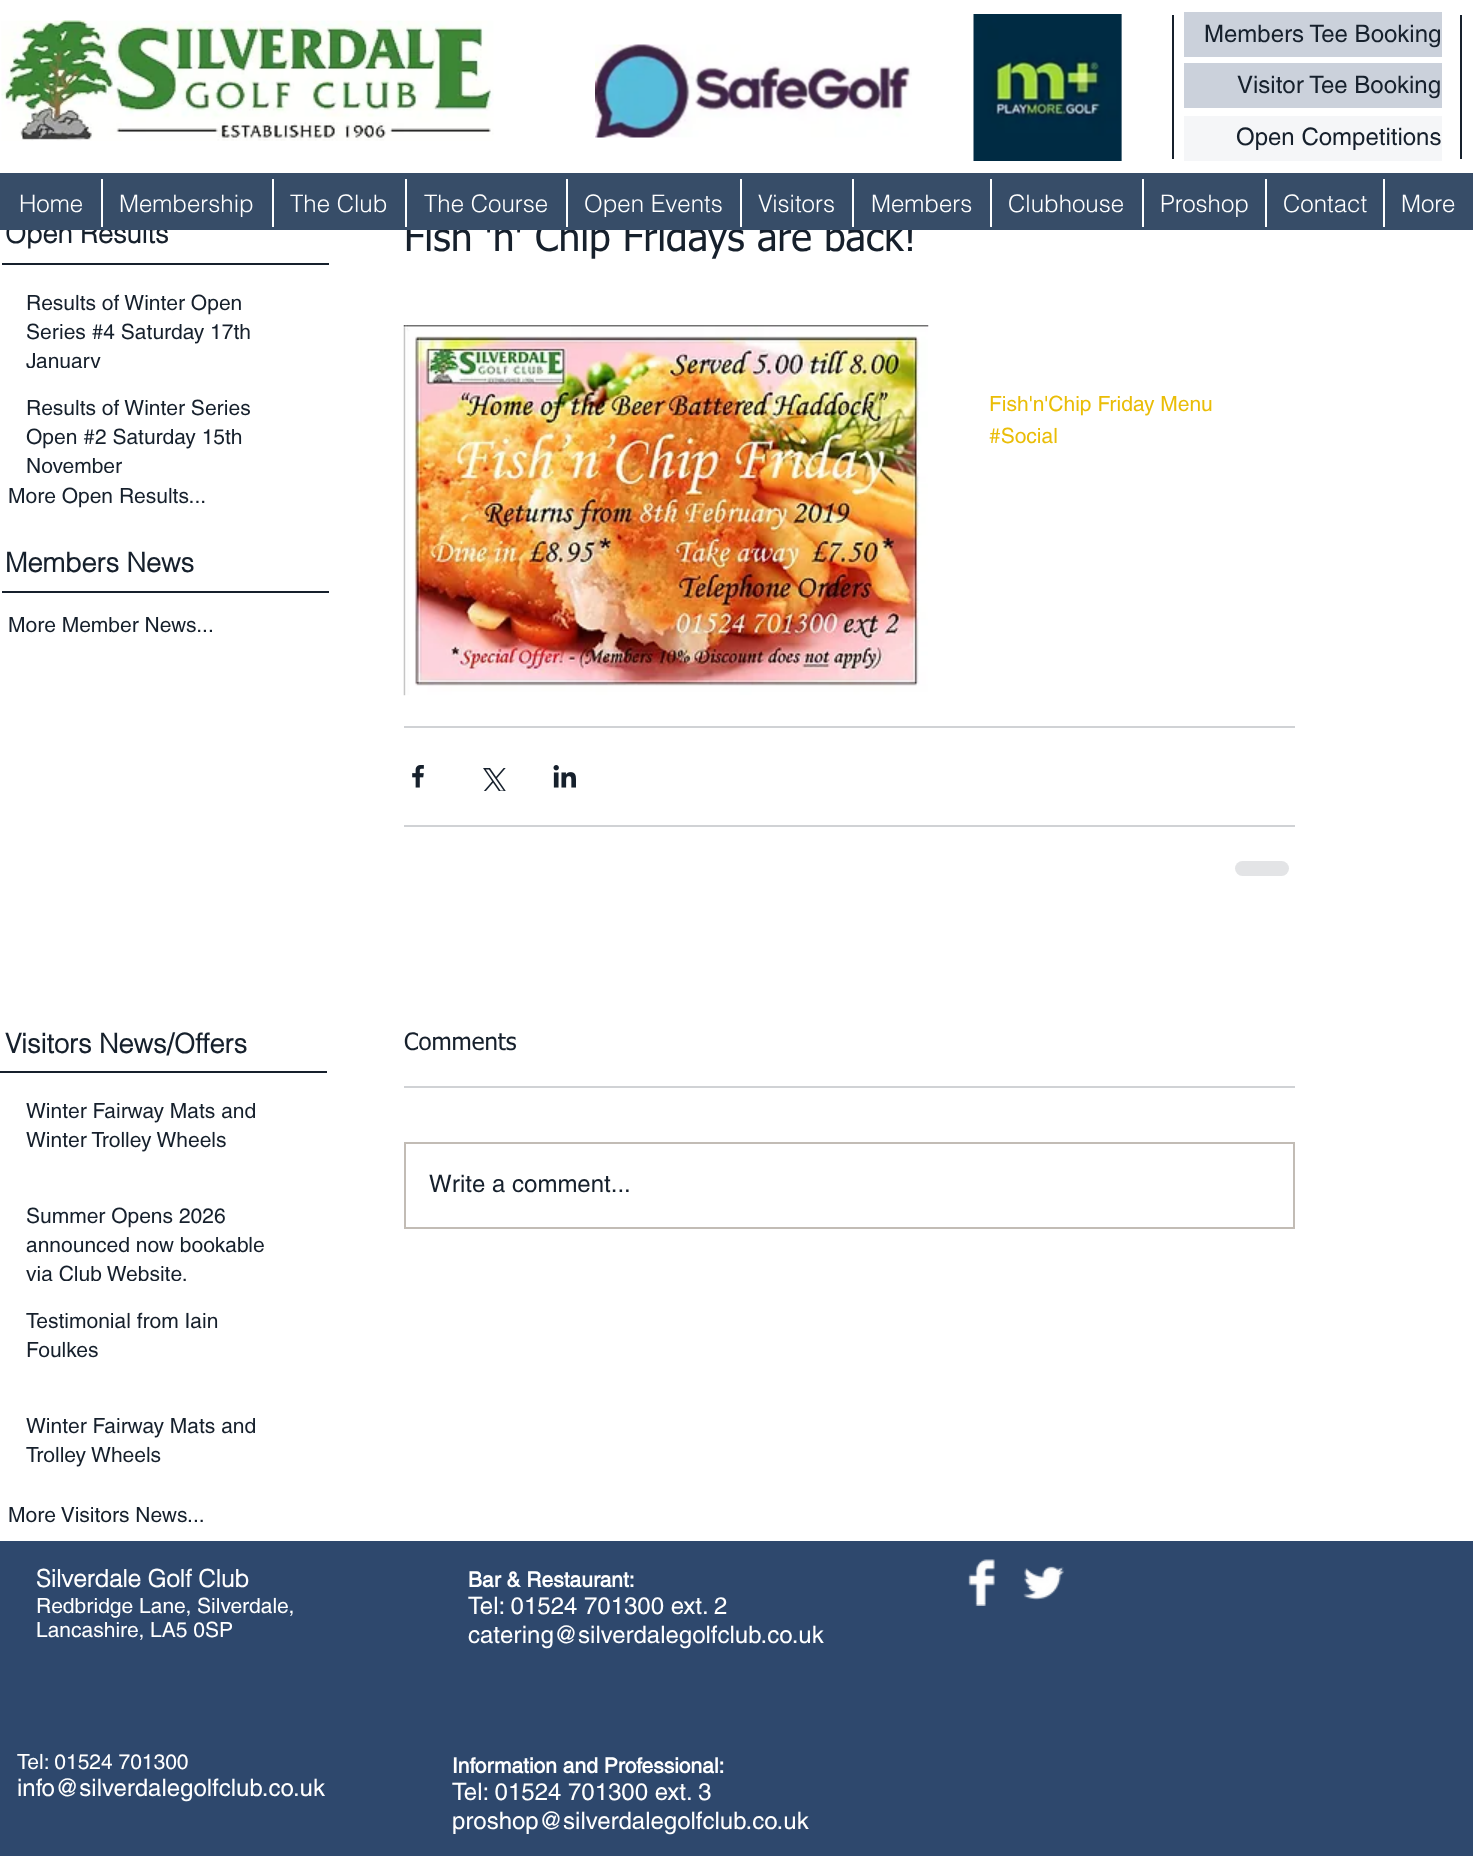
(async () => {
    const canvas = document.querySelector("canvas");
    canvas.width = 1473;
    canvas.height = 1856;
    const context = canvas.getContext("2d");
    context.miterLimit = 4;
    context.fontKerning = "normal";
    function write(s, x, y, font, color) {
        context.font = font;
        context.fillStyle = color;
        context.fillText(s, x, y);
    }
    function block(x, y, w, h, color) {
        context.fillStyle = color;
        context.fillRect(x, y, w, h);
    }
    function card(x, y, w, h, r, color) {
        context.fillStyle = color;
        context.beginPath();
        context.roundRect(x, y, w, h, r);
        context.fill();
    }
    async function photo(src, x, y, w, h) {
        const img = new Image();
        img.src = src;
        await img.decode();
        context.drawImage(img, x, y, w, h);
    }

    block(0, 0, 1473, 1856, "rgb(255, 255, 255)");
    await photo("media/1.png", 1, 20, 493, 121);
    await photo("media/2.png", 973, 14, 149, 147);
    block(1172, 15, 2, 144, "rgb(22, 32, 44)");
    block(1184, 12, 258, 45, "rgb(203, 209, 219)");
    write("Members Tee Booking", 1204, 42, "24px helvetica", "rgb(22, 32, 44)");
    block(1460, 15, 2, 144, "rgb(22, 32, 44)");
    await photo("media/3.png", 595, 44, 317, 94);
    block(1184, 63, 258, 45, "rgb(203, 209, 219)");
    write("Visitor Tee Booking", 1237, 93, "24px helvetica", "rgb(22, 32, 44)");
    block(1184, 116, 258, 45, "rgb(245, 246, 248)");
    write("Open Competitions", 1236, 145, "24px helvetica", "rgb(22, 32, 44)");
    write("Open Results", 5, 243, "bold 27px helvetica", "rgb(22, 32, 44)");
    write("Fish 'n' Chip Fridays are back!", 404, 251, "39px tahoma", "rgb(22, 32, 44)");
    block(0, 173, 1473, 57, "rgb(55, 77, 104)");
    write("Home", 19, 212, "300 24px helvetica", "rgb(255, 255, 255)");
    block(101, 179, 2, 48, "rgb(255, 255, 255)");
    write("Membership", 119, 212, "300 24px helvetica", "rgb(255, 255, 255)");
    block(272, 179, 2, 48, "rgb(255, 255, 255)");
    write("The Club", 290, 212, "300 24px helvetica", "rgb(255, 255, 255)");
    block(405, 179, 2, 48, "rgb(255, 255, 255)");
    write("The Course", 424, 212, "300 24px helvetica", "rgb(255, 255, 255)");
    block(566, 179, 2, 48, "rgb(255, 255, 255)");
    write("Open Events", 584, 212, "300 24px helvetica", "rgb(255, 255, 255)");
    block(740, 179, 2, 48, "rgb(255, 255, 255)");
    write("Visitors", 758, 212, "300 24px helvetica", "rgb(255, 255, 255)");
    block(852, 179, 2, 48, "rgb(255, 255, 255)");
    write("Members", 871, 212, "300 24px helvetica", "rgb(255, 255, 255)");
    block(990, 179, 2, 48, "rgb(255, 255, 255)");
    write("Clubhouse", 1008, 212, "300 24px helvetica", "rgb(255, 255, 255)");
    block(1142, 179, 2, 48, "rgb(255, 255, 255)");
    write("Proshop", 1160, 212, "300 24px helvetica", "rgb(255, 255, 255)");
    block(1265, 179, 2, 48, "rgb(255, 255, 255)");
    write("Contact", 1283, 212, "300 24px helvetica", "rgb(255, 255, 255)");
    block(1383, 179, 2, 48, "rgb(255, 255, 255)");
    write("More", 1401, 212, "300 24px helvetica", "rgb(255, 255, 255)");
    block(2, 263, 327, 2, "rgb(22, 32, 44)");
    write("Results of Winter Open", 26, 310, "21px helvetica", "rgb(22, 32, 44)");
    write("Series #4 Saturday 17th", 26, 339, "21px helvetica", "rgb(22, 32, 44)");
    context.save();
    context.beginPath();
    context.rect(26, 288, 258, 80);
    context.clip();
    write("January", 26, 368, "21px helvetica", "rgb(22, 32, 44)");
    context.restore();
    write("Results of Winter Series", 26, 415, "21px helvetica", "rgb(22, 32, 44)");
    write("Open #2 Saturday 15th", 26, 444, "21px helvetica", "rgb(22, 32, 44)");
    context.save();
    context.beginPath();
    context.rect(26, 393, 258, 80);
    context.clip();
    write("November", 26, 473, "21px helvetica", "rgb(22, 32, 44)");
    context.restore();
    write("More Open Results...", 8, 503, "21px helvetica", "rgb(22, 32, 44)");
    await photo("media/4.png", 403, 325, 526, 371);
    write("Fish'n'Chip Friday Menu", 989, 411, "21px helvetica", "rgb(234, 189, 7)");
    write("#Social", 989, 443, "21px helvetica", "rgb(234, 189, 7)");
    block(404, 726, 891, 2, "rgb(208, 210, 213)");
    await photo("media/5.png", 412, 765, 12, 23);
    await photo("media/6.png", 483, 768, 23, 23);
    await photo("media/7.png", 553, 765, 23, 23);
    block(404, 825, 891, 2, "rgb(208, 210, 213)");
    card(1235, 861, 54, 15, 7.5, "rgb(227, 228, 230)");
    write("Comments", 404, 1050, "24px tahoma", "rgb(22, 32, 44)");
    block(404, 1086, 891, 2, "rgb(208, 210, 213)");
    context.strokeStyle = "rgb(194, 188, 181)";
    context.lineWidth = 2;
    context.strokeRect(405, 1143, 889, 85);
    write("Write a comment...", 429, 1192, "24px helvetica", "rgb(22, 32, 44)");
    write("Members News", 5, 572, "bold 27px helvetica", "rgb(22, 32, 44)");
    block(2, 591, 327, 2, "rgb(22, 32, 44)");
    write("More Member News...", 8, 632, "21px helvetica", "rgb(22, 32, 44)");
    write("Visitors News/Offers", 5, 1053, "bold 27px helvetica", "rgb(22, 32, 44)");
    block(0, 1071, 327, 2, "rgb(22, 32, 44)");
    write("Winter Fairway Mats and", 26, 1118, "21px helvetica", "rgb(22, 32, 44)");
    write("Winter Trolley Wheels", 26, 1147, "21px helvetica", "rgb(22, 32, 44)");
    write("Summer Opens 2026", 26, 1223, "21px helvetica", "rgb(22, 32, 44)");
    write("announced now bookable", 26, 1252, "21px helvetica", "rgb(22, 32, 44)");
    context.save();
    context.beginPath();
    context.rect(26, 1202, 258, 79);
    context.clip();
    write("via Club Website.", 26, 1281, "21px helvetica", "rgb(22, 32, 44)");
    context.restore();
    write("Testimonial from Iain", 26, 1328, "21px helvetica", "rgb(22, 32, 44)");
    write("Foulkes", 26, 1357, "21px helvetica", "rgb(22, 32, 44)");
    write("Winter Fairway Mats and", 26, 1433, "21px helvetica", "rgb(22, 32, 44)");
    write("Trolley Wheels", 26, 1462, "21px helvetica", "rgb(22, 32, 44)");
    write("More Visitors News...", 8, 1522, "21px helvetica", "rgb(22, 32, 44)");
    block(0, 1541, 1473, 315, "rgb(46, 72, 109)");
    write("Silverdale Golf Club", 36, 1587, "bold 24px helvetica", "rgb(255, 255, 255)");
    write("Redbridge Lane, Silverdale,", 36, 1613, "21px helvetica", "rgb(255, 255, 255)");
    write("Lancashire, LA5 0SP", 36, 1637, "21px helvetica", "rgb(255, 255, 255)");
    write("Bar & Restaurant:", 468, 1587, "bold 21px 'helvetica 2'", "rgb(255, 255, 255)");
    write("Tel: 01524 701300 ext. 2", 468, 1614, "24px helvetica", "rgb(255, 255, 255)");
    write("catering@silverdalegolfclub.co.uk", 468, 1643, "24px helvetica", "rgb(255, 255, 255)");
    await photo("media/8.png", 968, 1559, 27, 47);
    await photo("media/9.png", 1023, 1566, 42, 34);
    write("Tel: 01524 701300", 17, 1769, "21px helvetica", "rgb(255, 255, 255)");
    write("info@silverdalegolfclub.co.uk", 17, 1796, "24px helvetica", "rgb(255, 255, 255)");
    write("Information and Professional:", 452, 1773, "bold 21px 'helvetica 2'", "rgb(255, 255, 255)");
    write("Tel: 01524 701300 ext. 3", 452, 1800, "24px helvetica", "rgb(255, 255, 255)");
    write("proshop@silverdalegolfclub.co.uk", 452, 1829, "24px helvetica", "rgb(255, 255, 255)");
})();
